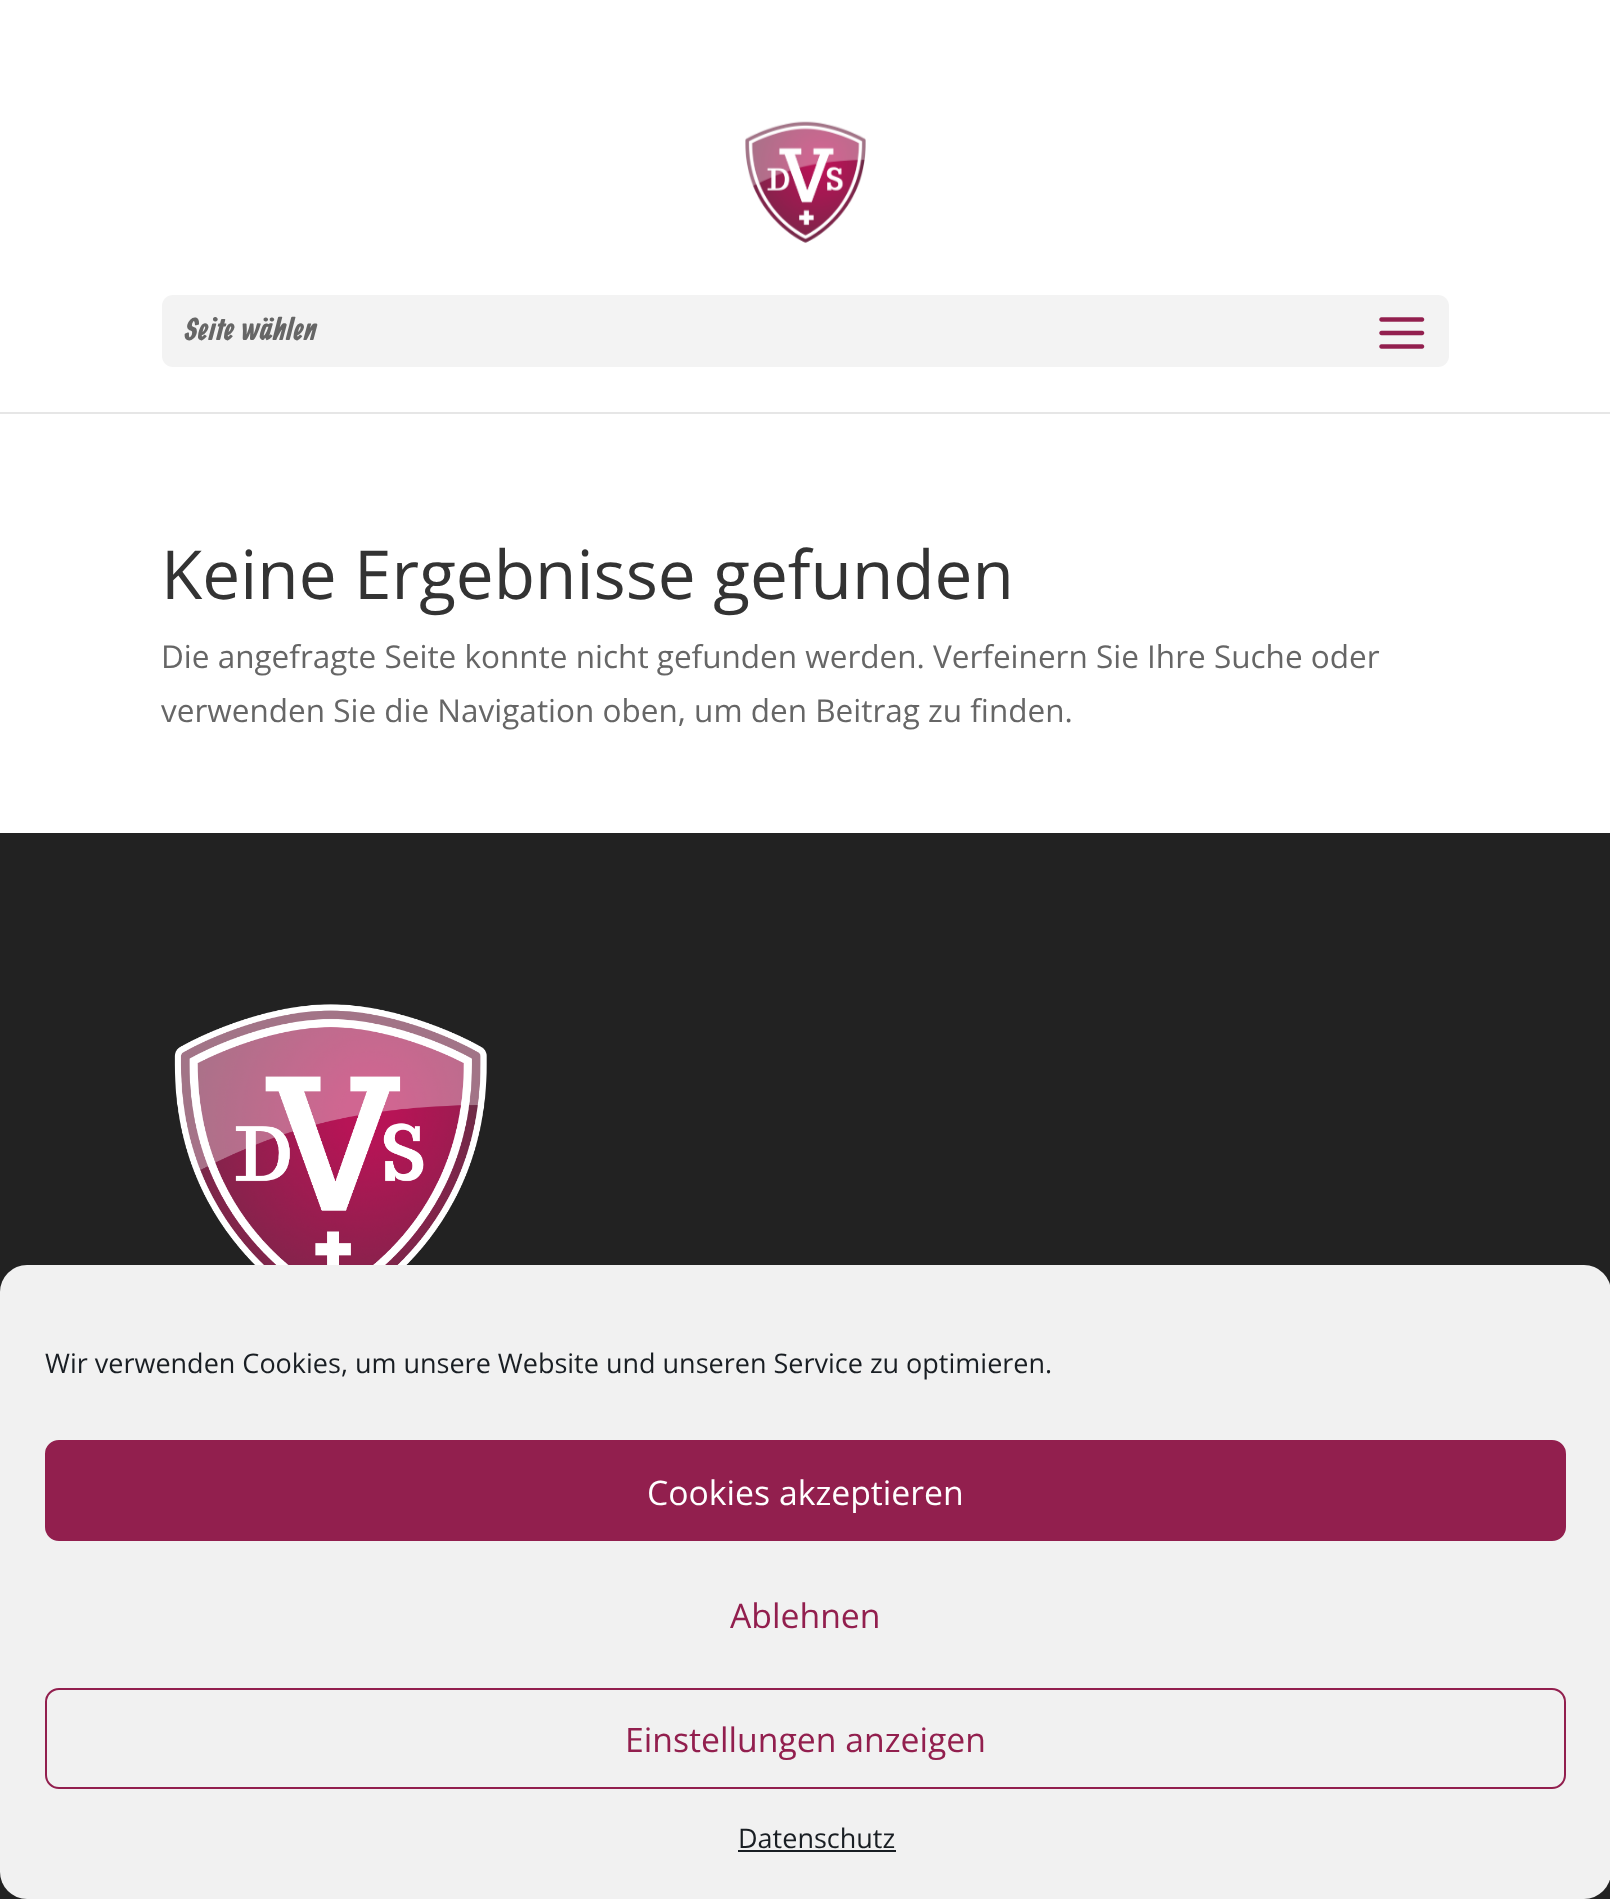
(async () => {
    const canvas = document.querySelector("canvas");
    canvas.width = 1610;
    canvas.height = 1899;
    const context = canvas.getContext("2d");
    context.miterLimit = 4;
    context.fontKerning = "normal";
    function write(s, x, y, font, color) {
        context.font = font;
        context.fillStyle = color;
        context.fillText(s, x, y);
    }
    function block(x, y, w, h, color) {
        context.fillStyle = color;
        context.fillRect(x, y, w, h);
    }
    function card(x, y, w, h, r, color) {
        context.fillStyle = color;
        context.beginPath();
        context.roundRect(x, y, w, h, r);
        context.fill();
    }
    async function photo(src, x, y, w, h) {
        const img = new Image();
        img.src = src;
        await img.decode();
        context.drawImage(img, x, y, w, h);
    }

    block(0, 0, 1610, 1899, "rgb(255, 255, 255)");
    block(0, 412, 1610, 2, "rgb(230, 230, 230)");
    await photo("media/1.png", 745, 121, 121, 122);
    card(162, 295, 1287, 72, 11, "rgb(243, 243, 243)");
    write("Seite wählen", 184, 340, "bold 31.5px Allan", "rgb(102, 102, 102)");
    await photo("media/2.png", 1379, 317, 46, 32);
    write("Keine Ergebnisse gefunden", 161, 599, "67.5px Open Sans", "rgb(51, 51, 51)");
    write("Die angefragte Seite konnte nicht gefunden werden. Verfeinern Sie Ihre Suche oder", 161, 668, "31.5px Open Sans", "rgb(102, 102, 102)");
    write("verwenden Sie die Navigation oben, um den Beitrag zu finden.", 161, 722, "31.5px Open Sans", "rgb(102, 102, 102)");
    block(0, 833, 1610, 1066, "rgb(34, 34, 34)");
    await photo("media/3.png", 174, 1004, 313, 261);
    card(0, 1265, 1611, 634, 27, "rgb(241, 241, 241)");
    write("Wir verwenden Cookies, um unsere Website und unseren Service zu optimieren.", 45, 1373, "27px Open Sans", "rgb(25, 30, 35)");
    context.fillStyle = "rgb(146, 31, 78)";
    context.beginPath();
    context.roundRect(46, 1441, 1519, 99, 13);
    context.fill();
    context.strokeStyle = "rgb(146, 31, 78)";
    context.lineWidth = 2;
    context.stroke();
    write("Cookies akzeptieren", 647, 1505, "33.75px Open Sans", "rgb(255, 255, 255)");
    write("Ablehnen", 730, 1628, "33.75px Open Sans", "rgb(146, 31, 78)");
    context.beginPath();
    context.roundRect(46, 1689, 1519, 99, 13);
    context.stroke();
    write("Einstellungen anzeigen", 625, 1752, "33.75px Open Sans", "rgb(146, 31, 78)");
    write("Datenschutz", 738, 1848, "27px Open Sans", "rgb(25, 30, 35)");
    block(738, 1850, 158, 2, "rgb(25, 30, 35)");
})();
